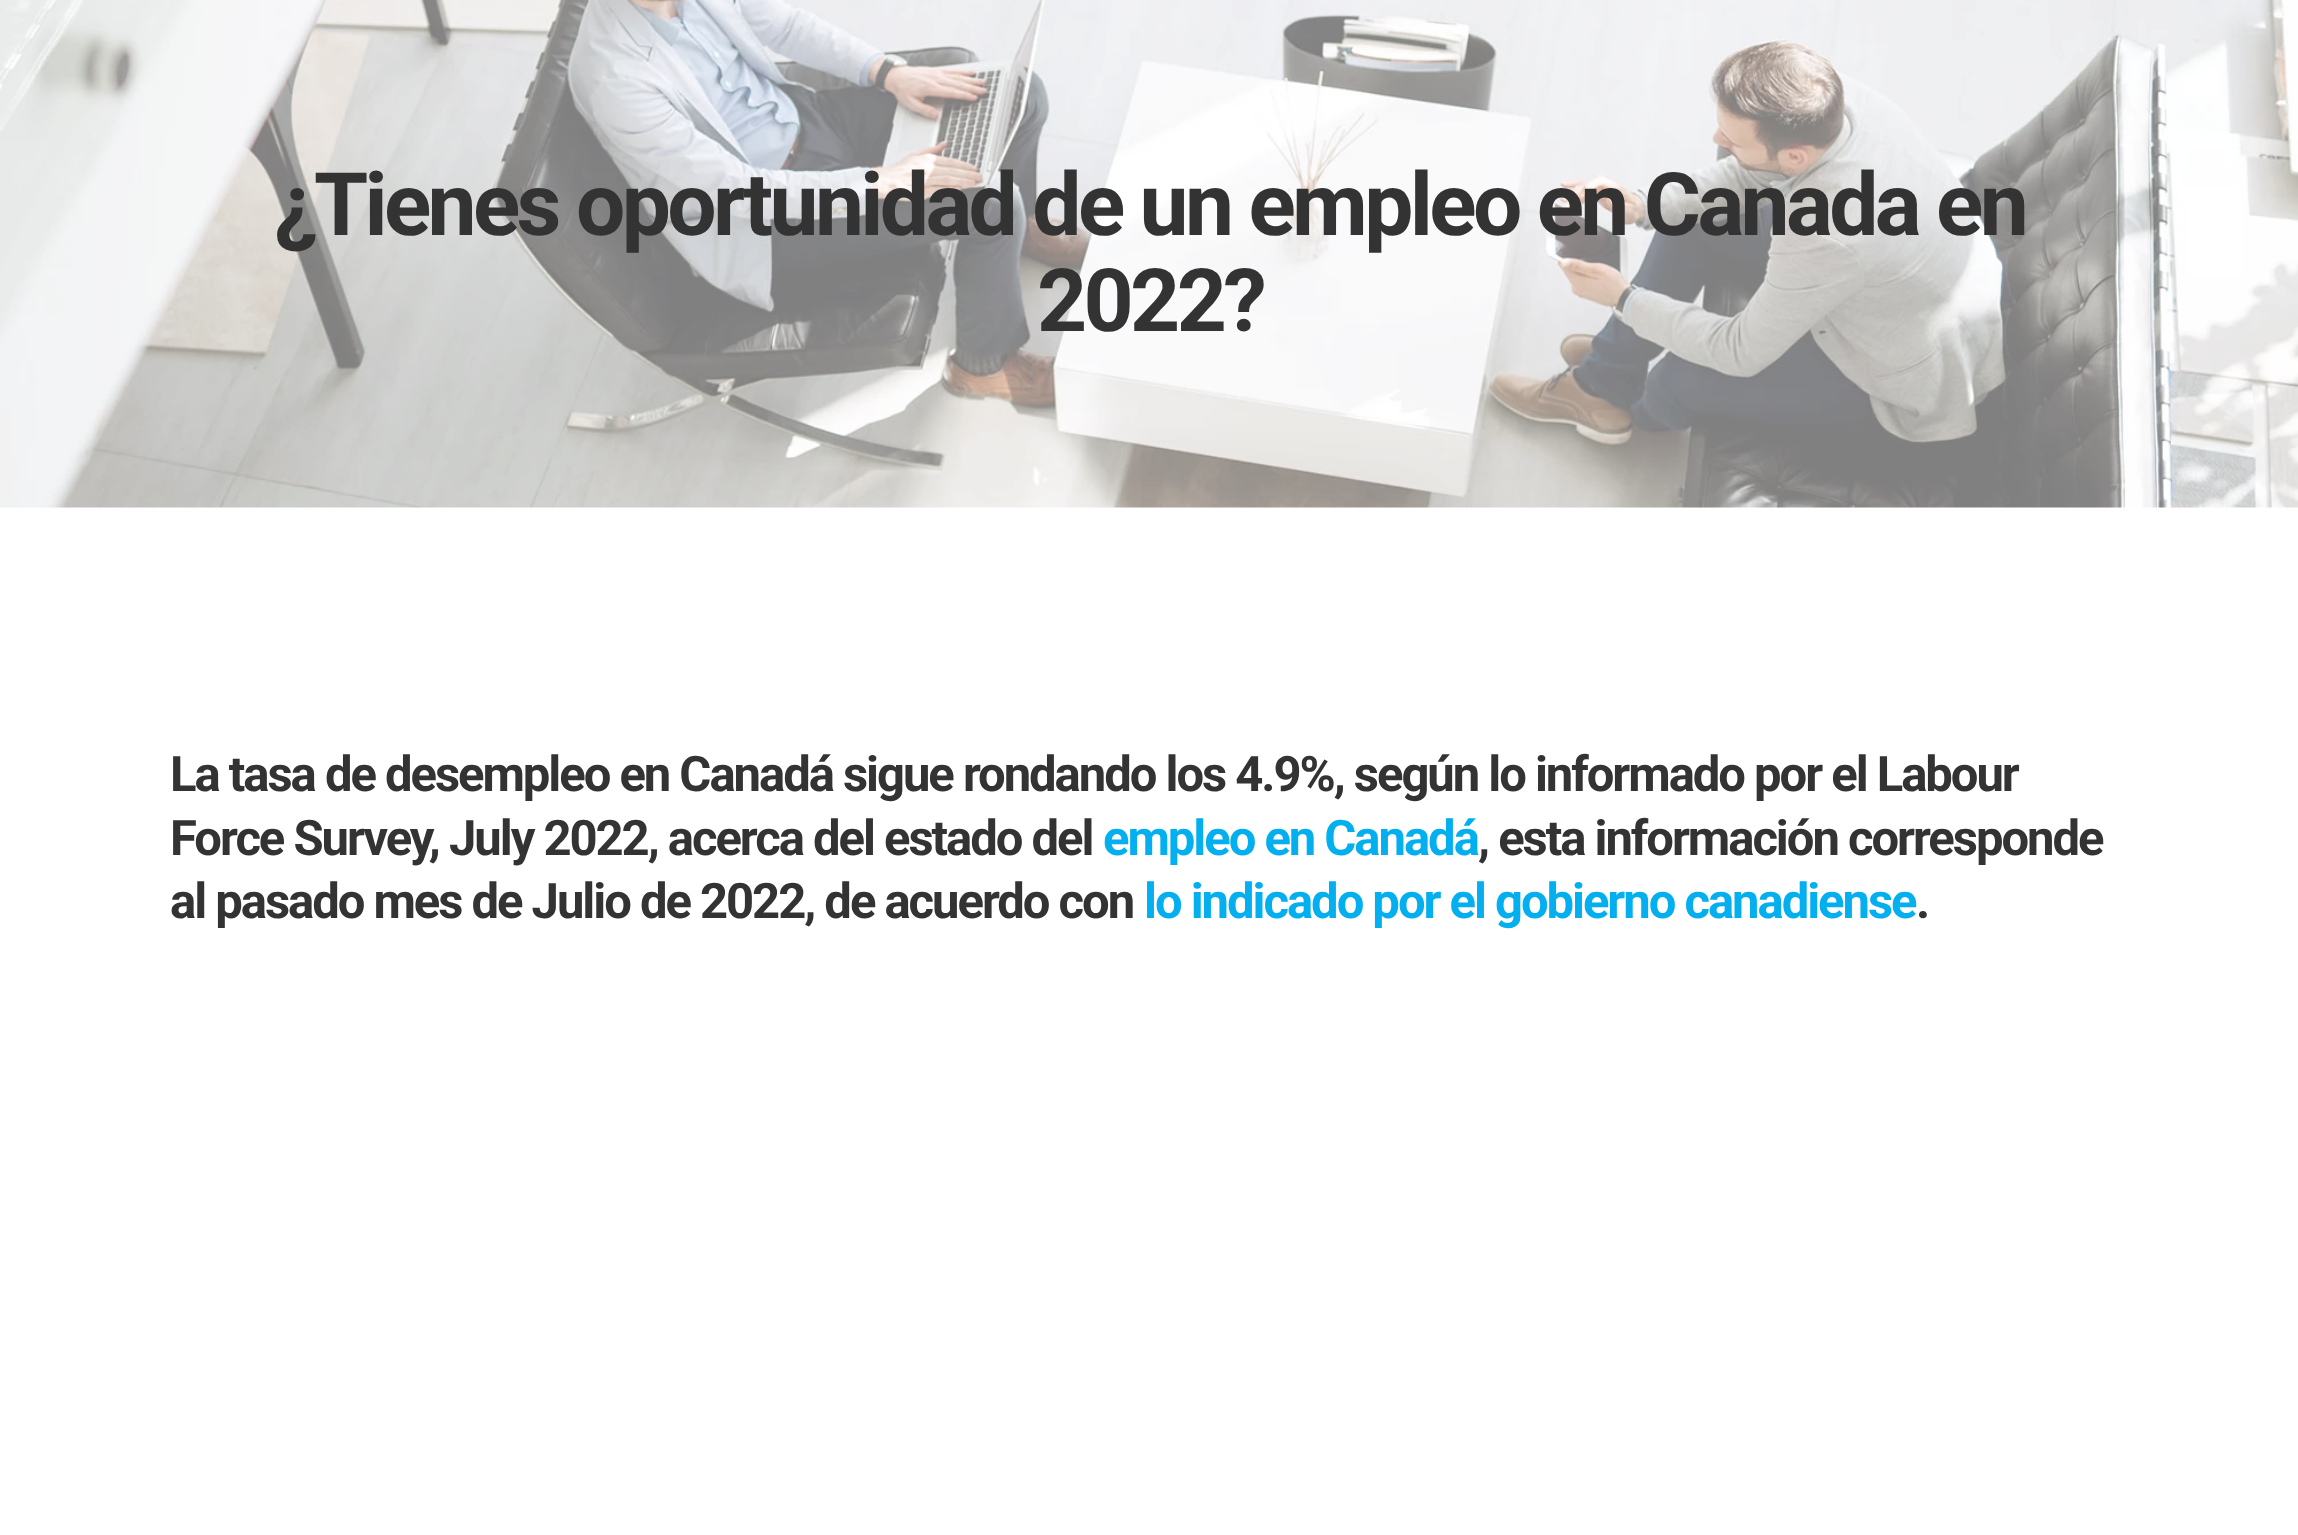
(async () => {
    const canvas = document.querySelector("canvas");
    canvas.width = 2298;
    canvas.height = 1535;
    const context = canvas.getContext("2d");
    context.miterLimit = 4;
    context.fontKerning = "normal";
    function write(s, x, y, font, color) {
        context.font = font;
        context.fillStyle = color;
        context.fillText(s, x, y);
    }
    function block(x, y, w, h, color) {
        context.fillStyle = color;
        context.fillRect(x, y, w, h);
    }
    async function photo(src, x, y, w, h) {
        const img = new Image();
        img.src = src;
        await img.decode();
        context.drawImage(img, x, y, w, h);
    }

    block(0, 0, 2298, 1535, "rgb(255, 255, 255)");
    await photo("media/1.png", 0, 0, 2298, 508);
    context.letterSpacing = "-3.65px";
    write("¿Tienes oportunidad de un empleo en Canada en", 274, 235, "bold 87.5px Roboto", "rgb(51, 51, 51)");
    write("2022?", 1037, 331, "bold 87.5px Roboto", "rgb(51, 51, 51)");
    context.letterSpacing = "-2.05px";
    write("La tasa de desempleo en Canadá sigue rondando los 4.9%, según lo informado por el Labour", 170, 791, "bold 49px Roboto", "rgb(51, 51, 51)");
    write("Force Survey, July 2022, acerca del estado del", 170, 855, "bold 49px Roboto", "rgb(51, 51, 51)");
    write("empleo en Canadá", 1103, 855, "bold 49px Roboto", "rgb(3, 175, 239)");
    write(", esta información corresponde", 1478, 855, "bold 49px Roboto", "rgb(51, 51, 51)");
    write("al pasado mes de Julio de 2022, de acuerdo con", 170, 918, "bold 49px Roboto", "rgb(51, 51, 51)");
    write("lo indicado por el gobierno canadiense", 1144, 918, "bold 49px Roboto", "rgb(3, 175, 239)");
    write(".", 1916, 918, "bold 49px Roboto", "rgb(51, 51, 51)");
})();
